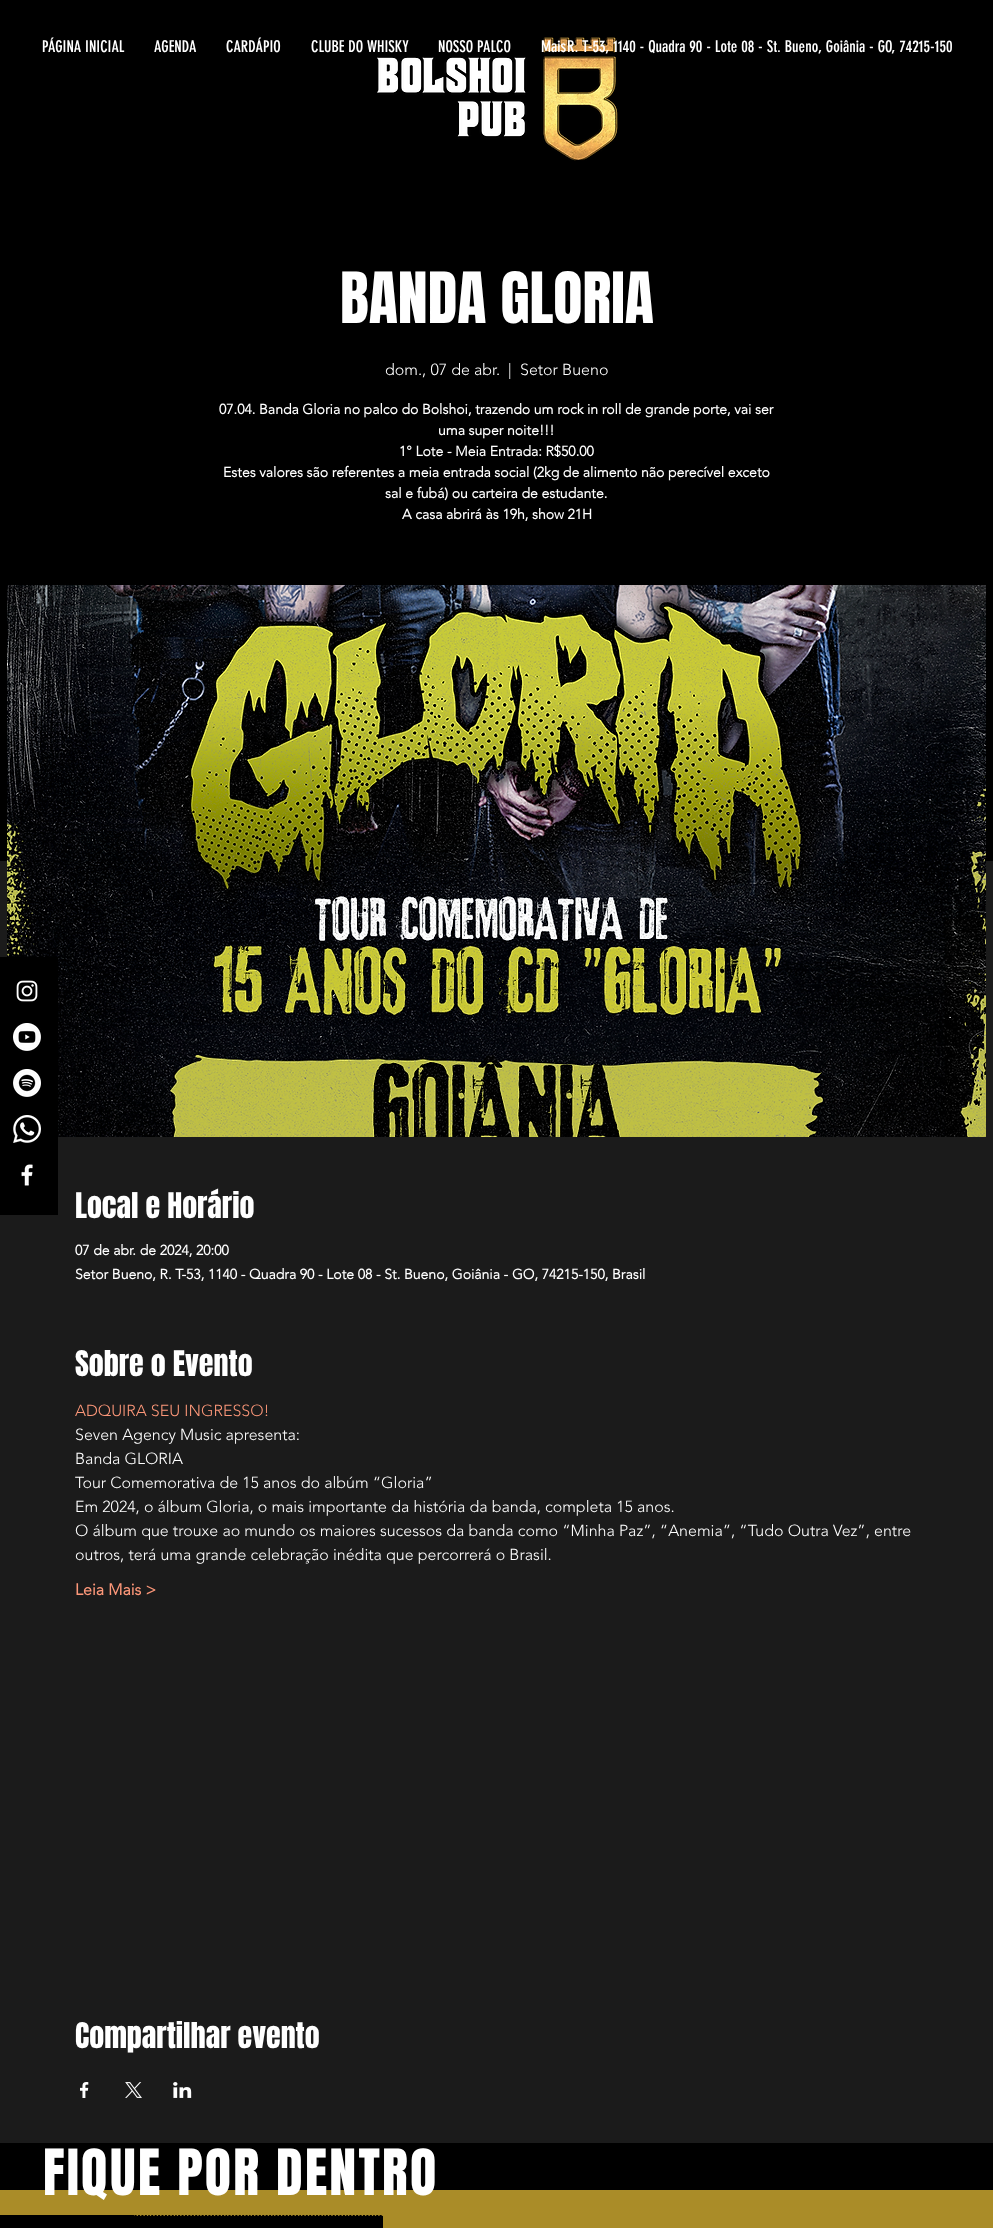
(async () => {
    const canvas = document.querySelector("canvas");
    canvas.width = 993;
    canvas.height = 2228;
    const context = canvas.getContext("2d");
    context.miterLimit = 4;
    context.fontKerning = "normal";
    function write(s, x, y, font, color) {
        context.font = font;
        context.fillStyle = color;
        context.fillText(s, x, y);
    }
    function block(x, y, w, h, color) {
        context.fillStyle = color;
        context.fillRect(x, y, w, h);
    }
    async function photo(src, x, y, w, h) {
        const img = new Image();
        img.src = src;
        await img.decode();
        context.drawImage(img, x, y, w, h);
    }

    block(0, 0, 993, 2228, "rgb(0, 0, 0)");
    write("PÁGINA INICIAL", 42, 52, "16px 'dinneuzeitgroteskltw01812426'", "rgb(255, 255, 255)");
    write("AGENDA", 154, 52, "16px 'dinneuzeitgroteskltw01812426'", "rgb(255, 255, 255)");
    write("CARDÁPIO", 226, 52, "16px 'dinneuzeitgroteskltw01812426'", "rgb(255, 255, 255)");
    await photo("media/1.png", 377, 37, 241, 124);
    write("CLUBE DO WHISKY", 311, 52, "16px 'dinneuzeitgroteskltw01812426'", "rgb(255, 255, 255)");
    write("NOSSO PALCO", 438, 52, "16px 'dinneuzeitgroteskltw01812426'", "rgb(255, 255, 255)");
    write("Mais", 541, 52, "16px 'dinneuzeitgroteskltw01812426'", "rgb(255, 255, 255)");
    write("R. T-53, 1140 - Quadra 90 - Lote 08 - St. Bueno, Goiânia - GO, 74215-150", 567, 52, "16px 'dinneuzeitgroteskltw01812426'", "rgb(255, 255, 255)");
    block(0, 861, 993, 1282, "rgb(27, 27, 27)");
    await photo("media/7.png", 7, 585, 979, 552);
    block(0, 957, 58, 258, "rgb(0, 0, 0)");
    await photo("media/2.png", 16, 980, 22, 22);
    await photo("media/3.png", 13, 1023, 28, 28);
    await photo("media/4.png", 13, 1069, 28, 28);
    await photo("media/5.png", 13, 1115, 28, 28);
    await photo("media/6.png", 21, 1164, 12, 22);
    write("BANDA GLORIA", 340, 323, "60px Anton", "rgb(255, 255, 255)");
    write("dom., 07 de abr.", 385, 375, "300 16px 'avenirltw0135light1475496'", "rgb(255, 255, 255)");
    write("|", 508, 375, "300 16px 'avenirltw0135light1475496'", "rgb(255, 255, 255)");
    write("Setor Bueno", 520, 375, "300 16px 'avenirltw0135light1475496'", "rgb(255, 255, 255)");
    write("07.04. Banda Gloria no palco do Bolshoi, trazendo um rock in roll de grande porte, vai ser", 219, 414, "bold 14px 'avenirltw0135light1475496'", "rgb(255, 255, 255)");
    write("uma super noite!!!", 438, 435, "bold 14px 'avenirltw0135light1475496'", "rgb(255, 255, 255)");
    write("1° Lote - Meia Entrada: R$50.00", 399, 456, "bold 14px 'avenirltw0135light1475496'", "rgb(255, 255, 255)");
    write("Estes valores são referentes a meia entrada social (2kg de alimento não perecível exceto", 223, 477, "bold 14px 'avenirltw0135light1475496'", "rgb(255, 255, 255)");
    write("sal e fubá) ou carteira de estudante.", 385, 498, "bold 14px 'avenirltw0135light1475496'", "rgb(255, 255, 255)");
    write("A casa abrirá às 19h, show 21H", 402, 519, "bold 14px 'avenirltw0135light1475496'", "rgb(255, 255, 255)");
    write("Local e Horário", 75, 1218, "30px Anton", "rgb(255, 255, 255)");
    write("07 de abr. de 2024, 20:00", 75, 1255, "bold 14px 'avenirltw0135light1475496'", "rgb(255, 255, 255)");
    write("Setor Bueno, R. T-53, 1140 - Quadra 90 - Lote 08 - St. Bueno, Goiânia - GO, 74215-150, Brasil", 75, 1279, "bold 14px 'avenirltw0135light1475496'", "rgb(255, 255, 255)");
    write("Sobre o Evento", 75, 1376, "30px Anton", "rgb(255, 255, 255)");
    write("ADQUIRA SEU INGRESSO!", 75, 1416, "300 16px 'avenirltw0135light1475496'", "rgb(252, 151, 121)");
    write("Seven Agency Music apresenta:", 75, 1440, "300 16px 'avenirltw0135light1475496'", "rgb(255, 255, 255)");
    write("Banda GLORIA", 75, 1464, "300 16px 'avenirltw0135light1475496'", "rgb(255, 255, 255)");
    write("Tour Comemorativa de 15 anos do albúm “Gloria”", 75, 1488, "300 16px 'avenirltw0135light1475496'", "rgb(255, 255, 255)");
    write("Em 2024, o álbum Gloria, o mais importante da história da banda, completa 15 anos.", 75, 1512, "300 16px 'avenirltw0135light1475496'", "rgb(255, 255, 255)");
    write("O álbum que trouxe ao mundo os maiores sucessos da banda como “Minha Paz”, “Anemia”, “Tudo Outra Vez”, entre", 75, 1536, "300 16px 'avenirltw0135light1475496'", "rgb(255, 255, 255)");
    write("outros, terá uma grande celebração inédita que percorrerá o Brasil.", 75, 1560, "300 16px 'avenirltw0135light1475496'", "rgb(255, 255, 255)");
    write("Leia Mais >", 75, 1595, "bold 16px 'avenirltw0135light1475496'", "rgb(252, 151, 121)");
    write("Compartilhar evento", 75, 2048, "30px Anton", "rgb(255, 255, 255)");
    await photo("media/8.png", 80, 2082, 9, 16);
    await photo("media/9.png", 125, 2082, 17, 16);
    await photo("media/10.png", 173, 2082, 19, 16);
    block(0, 2190, 993, 38, "rgb(170, 140, 40)");
    context.letterSpacing = "2.2px";
    write("FIQUE POR DENTRO", 43, 2195, "54px Anton", "rgb(255, 255, 255)");
    block(0, 2215, 383, 13, "rgb(0, 0, 0)");
    await photo("media/11.png", 134, 2215, 249, 1);
})();
